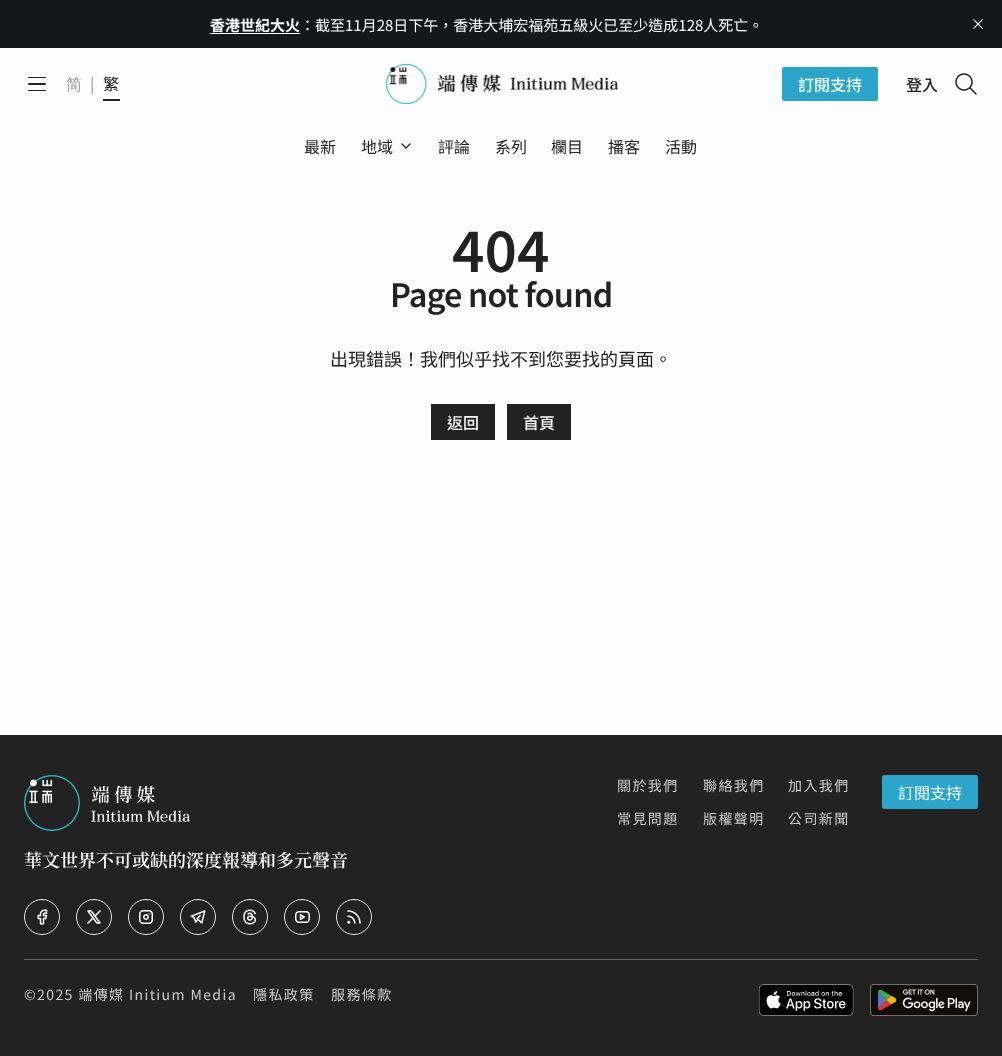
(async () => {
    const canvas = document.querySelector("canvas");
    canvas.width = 1002;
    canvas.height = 1056;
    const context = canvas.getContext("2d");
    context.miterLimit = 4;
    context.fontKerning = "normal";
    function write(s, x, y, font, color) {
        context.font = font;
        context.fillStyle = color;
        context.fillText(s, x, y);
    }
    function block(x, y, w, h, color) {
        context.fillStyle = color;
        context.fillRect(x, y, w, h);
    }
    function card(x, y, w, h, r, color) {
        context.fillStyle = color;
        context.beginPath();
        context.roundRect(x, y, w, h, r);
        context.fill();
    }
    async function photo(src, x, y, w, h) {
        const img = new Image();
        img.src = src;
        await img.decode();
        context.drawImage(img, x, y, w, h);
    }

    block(0, 0, 1002, 1056, "rgb(252, 252, 252)");
    block(0, 0, 1002, 48, "rgb(21, 23, 26)");
    write("香港世紀大火", 210, 31, "bold 15px Noto Sans TC", "rgb(250, 250, 250)");
    block(210, 33, 90, 1, "rgb(255, 255, 255)");
    write("：截至11月28日下午，香港大埔宏福苑五級火已至少造成128人死亡。", 300, 31, "15px Noto Sans TC", "rgb(250, 250, 250)");
    await photo("media/1.png", 973, 19, 10, 10);
    card(28, 77, 18, 1, 0.5, "rgb(34, 34, 34)");
    card(28, 83, 18, 2, 1, "rgb(34, 34, 34)");
    card(28, 90, 18, 1, 0.5, "rgb(34, 34, 34)");
    write("简", 66, 90, "500 16px WenQuanYi Zen Hei", "rgb(153, 153, 153)");
    write("|", 90, 90, "16px Noto Sans TC", "rgb(153, 153, 153)");
    block(103, 99, 17, 2, "rgb(34, 34, 34)");
    write("繁", 103, 90, "16px Noto Sans TC", "rgb(34, 34, 34)");
    await photo("media/2.png", 385, 64, 234, 40);
    card(782, 67, 96, 34, 2, "rgb(41, 166, 201)");
    write("訂閱支持", 798, 91, "500 16px Noto Sans TC", "rgb(250, 250, 250)");
    write("登入", 906, 91, "500 16px Noto Sans TC", "rgb(34, 34, 34)");
    await photo("media/3.png", 955, 73, 22, 22);
    write("最新", 304, 153, "16px Noto Sans TC", "rgb(34, 34, 34)");
    write("地域", 361, 153, "16px Noto Sans TC", "rgb(34, 34, 34)");
    context.beginPath();
    context.moveTo(402, 144);
    context.lineTo(406, 148);
    context.lineTo(410, 144);
    context.strokeStyle = "rgb(34, 34, 34)";
    context.lineWidth = 1.3;
    context.lineCap = "round";
    context.lineJoin = "round";
    context.stroke();
    write("評論", 438, 153, "16px Noto Sans TC", "rgb(34, 34, 34)");
    write("系列", 495, 153, "16px Noto Sans TC", "rgb(34, 34, 34)");
    write("欄目", 551, 153, "16px Noto Sans TC", "rgb(34, 34, 34)");
    write("播客", 608, 153, "16px Noto Sans TC", "rgb(34, 34, 34)");
    write("活動", 665, 153, "16px Noto Sans TC", "rgb(34, 34, 34)");
    write("404", 452, 272, "600 56px Noto Sans TC", "rgb(34, 34, 34)");
    context.letterSpacing = "-0.75px";
    write("Page not found", 390, 307, "600 32px Noto Sans TC", "rgb(34, 34, 34)");
    context.letterSpacing = "0px";
    write("出現錯誤！我們似乎找不到您要找的頁面。", 330, 366, "18px Noto Sans TC", "rgb(34, 34, 34)");
    block(431, 404, 64, 36, "rgb(34, 34, 34)");
    write("返回", 447, 429, "500 16px Noto Sans TC", "rgb(250, 250, 250)");
    block(507, 404, 64, 36, "rgb(34, 34, 34)");
    write("首頁", 523, 429, "500 16px Noto Sans TC", "rgb(250, 250, 250)");
    block(0, 735, 1002, 321, "rgb(34, 34, 34)");
    context.letterSpacing = "1.4px";
    write("關於我們", 617, 791, "14px Noto Sans TC", "rgb(204, 204, 204)");
    write("聯絡我們", 703, 791, "14px Noto Sans TC", "rgb(204, 204, 204)");
    write("加入我們", 788, 791, "14px Noto Sans TC", "rgb(204, 204, 204)");
    write("常見問題", 617, 824, "14px Noto Sans TC", "rgb(204, 204, 204)");
    write("版權聲明", 703, 824, "14px Noto Sans TC", "rgb(204, 204, 204)");
    write("公司新聞", 788, 824, "14px Noto Sans TC", "rgb(204, 204, 204)");
    card(882, 775, 96, 34, 2, "rgb(41, 166, 201)");
    context.letterSpacing = "0px";
    write("訂閱支持", 898, 799, "16px Noto Sans TC", "rgb(250, 250, 250)");
    await photo("media/4.png", 24, 775, 166, 56);
    write("華文世界不可或缺的深度報導和多元聲音", 24, 867, "600 18px Noto Serif TC", "rgb(250, 250, 250)");
    context.beginPath();
    context.arc(42, 917, 17.5, 0, Math.PI * 2);
    context.strokeStyle = "rgb(229, 229, 229)";
    context.lineWidth = 1;
    context.stroke();
    await photo("media/5.png", 37, 909, 11, 16);
    context.beginPath();
    context.arc(94, 917, 17.5, 0, Math.PI * 2);
    context.stroke();
    await photo("media/6.png", 87, 910, 14, 14);
    context.beginPath();
    context.arc(146, 917, 17.5, 0, Math.PI * 2);
    context.stroke();
    await photo("media/7.png", 139, 910, 14, 14);
    context.beginPath();
    context.arc(198, 917, 17.5, 0, Math.PI * 2);
    context.stroke();
    await photo("media/8.png", 190, 910, 16, 14);
    context.beginPath();
    context.arc(250, 917, 17.5, 0, Math.PI * 2);
    context.stroke();
    await photo("media/9.png", 243, 909, 13, 16);
    context.beginPath();
    context.arc(302, 917, 17.5, 0, Math.PI * 2);
    context.stroke();
    await photo("media/10.png", 295, 911, 15, 12);
    context.beginPath();
    context.arc(354, 917, 17.5, 0, Math.PI * 2);
    context.stroke();
    await photo("media/11.png", 347, 910, 14, 14);
    block(24, 959, 954, 1, "rgb(102, 102, 102)");
    context.letterSpacing = "1.4px";
    write("©2025 端傳媒 Initium Media", 24, 1000, "14px Noto Sans TC", "rgb(204, 204, 204)");
    write("隱私政策", 253, 1000, "14px Noto Sans TC", "rgb(204, 204, 204)");
    write("服務條款", 331, 1000, "14px Noto Sans TC", "rgb(204, 204, 204)");
    await photo("media/12.png", 758, 984, 96, 32);
    await photo("media/13.png", 870, 984, 108, 32);
})();
